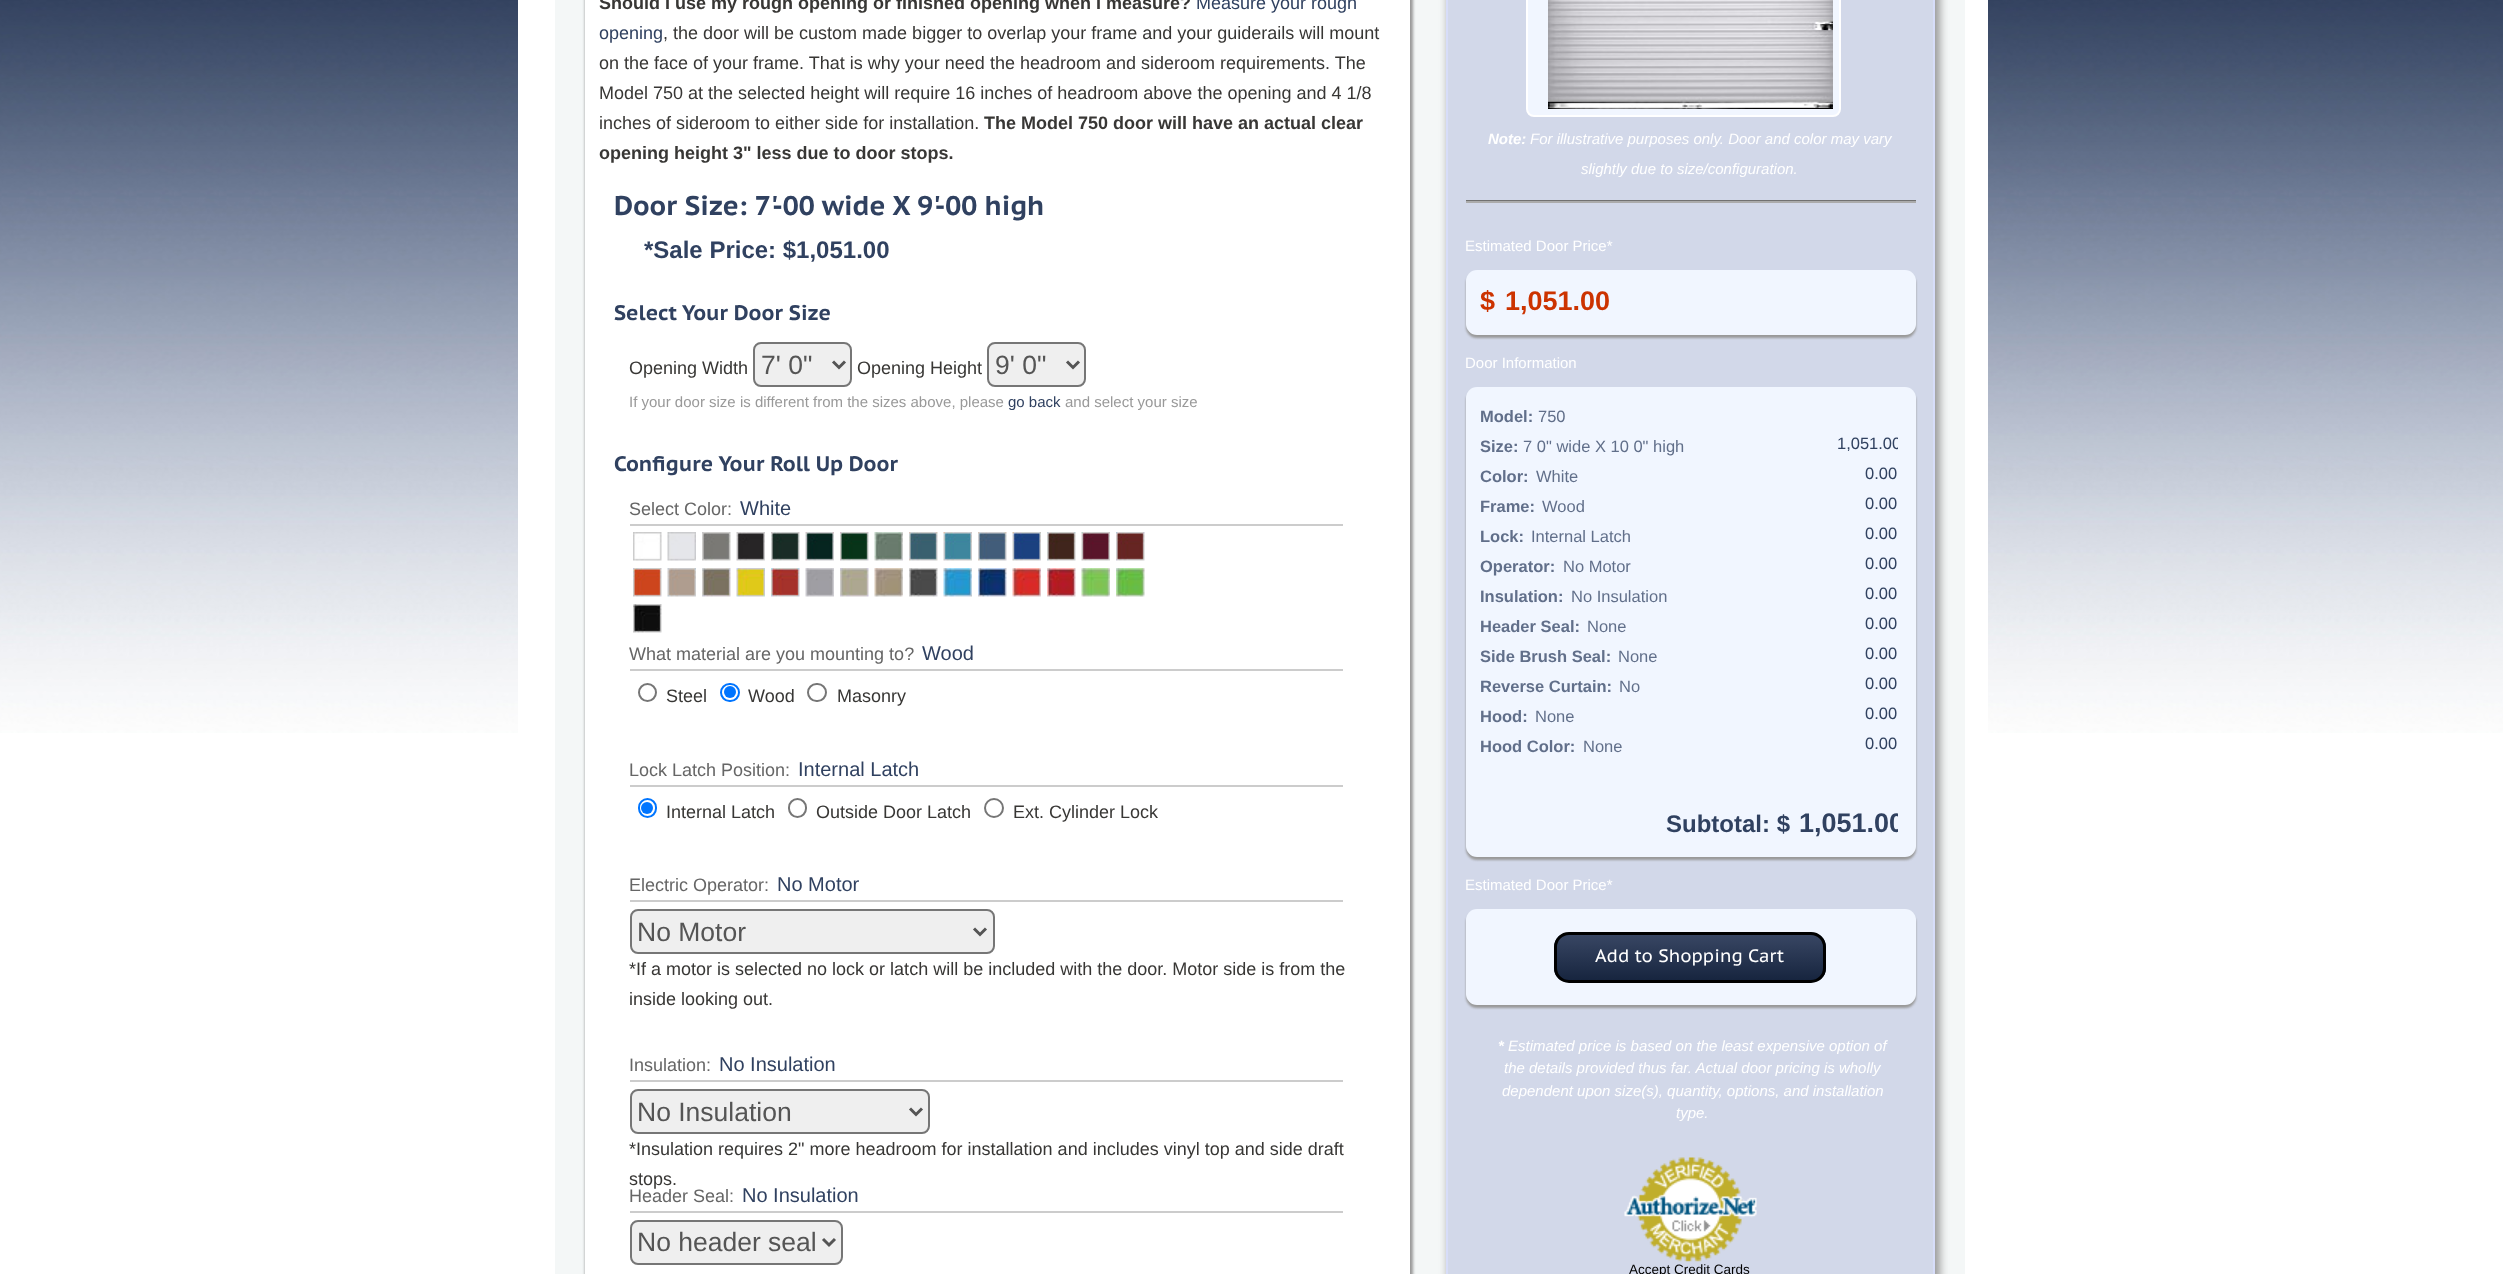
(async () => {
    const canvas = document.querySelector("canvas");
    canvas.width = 2503;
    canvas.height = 1274;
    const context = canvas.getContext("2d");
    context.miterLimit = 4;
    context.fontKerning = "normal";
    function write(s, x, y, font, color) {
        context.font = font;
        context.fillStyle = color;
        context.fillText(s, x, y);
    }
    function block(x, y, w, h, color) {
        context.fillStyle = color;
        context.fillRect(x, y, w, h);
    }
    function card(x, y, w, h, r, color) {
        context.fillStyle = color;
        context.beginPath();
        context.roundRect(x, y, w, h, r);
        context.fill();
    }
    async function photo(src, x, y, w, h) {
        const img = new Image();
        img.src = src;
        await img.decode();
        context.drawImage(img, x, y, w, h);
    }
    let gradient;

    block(0, 0, 2503, 1274, "rgb(255, 255, 255)");
    await photo("media/1.png", 0, 0, 2503, 733);
    block(518, 0, 1470, 733, "rgb(255, 255, 255)");
    block(555, 0, 1410, 1274, "rgb(244, 247, 247)");
    context.fillStyle = "rgb(153, 153, 153)";
    context.filter = "blur(1.5px)";
    context.beginPath();
    context.roundRect(585, -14, 828, 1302, 9);
    context.fill();
    context.filter = "none";
    block(585, 0, 825, 1274, "rgb(255, 255, 255)");
    write("Should I use my rough opening or finished opening when I measure?", 599, 9, "bold 18px Liberation Sans", "rgb(56, 55, 53)");
    write("Measure your rough", 1196, 9, "18px Liberation Sans", "rgb(48, 65, 96)");
    write("opening", 599, 39, "18px Liberation Sans", "rgb(48, 65, 96)");
    write(", the door will be custom made bigger to overlap your frame and your guiderails will mount", 663, 39, "18px Liberation Sans", "rgb(56, 55, 53)");
    write("on the face of your frame. That is why your need the headroom and sideroom requirements. The", 599, 69, "18px Liberation Sans", "rgb(56, 55, 53)");
    write("Model 750 at the selected height will require 16 inches of headroom above the opening and 4 1/8", 599, 99, "18px Liberation Sans", "rgb(56, 55, 53)");
    write("inches of sideroom to either side for installation.", 599, 129, "18px Liberation Sans", "rgb(56, 55, 53)");
    write("The Model 750 door will have an actual clear", 984, 129, "bold 18px Liberation Sans", "rgb(56, 55, 53)");
    write("opening height 3\" less due to door stops.", 599, 159, "bold 18px Liberation Sans", "rgb(56, 55, 53)");
    write("Door Size: 7'-00 wide X 9'-00 high", 614, 215, "bold 27px PT Sans Caption", "rgb(48, 65, 96)");
    write("*Sale Price: $1,051.00", 644, 258, "bold 24px Liberation Sans", "rgb(48, 65, 96)");
    write("Select Your Door Size", 614, 320, "bold 21px PT Sans Caption", "rgb(48, 65, 96)");
    write("Opening Width", 629, 374, "18px Liberation Sans", "rgb(56, 55, 53)");
    context.fillStyle = "rgb(239, 239, 239)";
    context.beginPath();
    context.roundRect(754, 343, 97, 43, 7);
    context.fill();
    context.strokeStyle = "rgb(118, 118, 118)";
    context.lineWidth = 2;
    context.stroke();
    context.beginPath();
    context.moveTo(833, 361.5);
    context.lineTo(839, 367.5);
    context.lineTo(845, 361.5);
    context.strokeStyle = "rgb(85, 85, 85)";
    context.lineWidth = 3;
    context.stroke();
    write("7' 0\"", 761, 374, "26.5px Liberation Sans", "rgb(85, 85, 85)");
    write("Opening Height", 857, 374, "18px Liberation Sans", "rgb(56, 55, 53)");
    context.fillStyle = "rgb(239, 239, 239)";
    context.beginPath();
    context.roundRect(988, 343, 97, 43, 7);
    context.fill();
    context.strokeStyle = "rgb(118, 118, 118)";
    context.lineWidth = 2;
    context.stroke();
    context.beginPath();
    context.moveTo(1067, 361.5);
    context.lineTo(1073, 367.5);
    context.lineTo(1079, 361.5);
    context.strokeStyle = "rgb(85, 85, 85)";
    context.lineWidth = 3;
    context.stroke();
    write("9' 0\"", 995, 374, "26.5px Liberation Sans", "rgb(85, 85, 85)");
    write("If your door size is different from the sizes above, please", 629, 407, "15px Liberation Sans", "rgb(153, 153, 153)");
    write("go back", 1008, 407, "15px Liberation Sans", "rgb(48, 65, 96)");
    write("and select your size", 1065, 407, "15px Liberation Sans", "rgb(153, 153, 153)");
    write("Configure Your Roll Up Door", 614, 471, "bold 21px PT Sans Caption", "rgb(48, 65, 96)");
    block(630, 524, 713, 2, "rgb(204, 204, 204)");
    write("Select Color:", 629, 515, "18px Liberation Sans", "rgb(102, 102, 102)");
    write("White", 740, 515, "20px Liberation Sans", "rgb(48, 65, 96)");
    await photo("media/2.png", 633, 532, 29, 29);
    await photo("media/3.png", 667, 532, 29, 29);
    await photo("media/4.png", 702, 532, 29, 29);
    await photo("media/5.png", 736, 532, 29, 29);
    await photo("media/6.png", 771, 532, 29, 29);
    await photo("media/7.png", 805, 532, 29, 29);
    await photo("media/8.png", 840, 532, 29, 29);
    await photo("media/9.png", 874, 532, 29, 29);
    await photo("media/10.png", 909, 532, 29, 29);
    await photo("media/11.png", 943, 532, 29, 29);
    await photo("media/12.png", 978, 532, 29, 29);
    await photo("media/13.png", 1012, 532, 29, 29);
    await photo("media/14.png", 1047, 532, 29, 29);
    await photo("media/15.png", 1081, 532, 29, 29);
    await photo("media/16.png", 1116, 532, 29, 29);
    await photo("media/17.png", 633, 568, 29, 29);
    await photo("media/18.png", 667, 568, 29, 29);
    await photo("media/19.png", 702, 568, 29, 29);
    await photo("media/20.png", 736, 568, 29, 29);
    await photo("media/21.png", 771, 568, 29, 29);
    await photo("media/22.png", 805, 568, 29, 29);
    await photo("media/23.png", 840, 568, 29, 29);
    await photo("media/24.png", 874, 568, 29, 29);
    await photo("media/25.png", 909, 568, 29, 29);
    await photo("media/26.png", 943, 568, 29, 29);
    await photo("media/27.png", 978, 568, 29, 29);
    await photo("media/28.png", 1012, 568, 29, 29);
    await photo("media/29.png", 1047, 568, 29, 29);
    await photo("media/30.png", 1081, 568, 29, 29);
    await photo("media/31.png", 1116, 568, 29, 29);
    await photo("media/32.png", 633, 604, 29, 29);
    block(630, 669, 713, 2, "rgb(204, 204, 204)");
    write("What material are you mounting to?", 629, 660, "18px Liberation Sans", "rgb(102, 102, 102)");
    write("Wood", 922, 660, "20px Liberation Sans", "rgb(48, 65, 96)");
    context.beginPath();
    context.arc(647.5, 692.5, 8.5, 0, Math.PI * 2);
    context.strokeStyle = "rgb(118, 118, 118)";
    context.lineWidth = 2;
    context.stroke();
    write("Steel", 666, 702, "18px Liberation Sans", "rgb(56, 55, 53)");
    context.beginPath();
    context.roundRect(721, 684, 18, 17, 8.5);
    context.strokeStyle = "rgb(0, 117, 255)";
    context.stroke();
    context.fillStyle = "rgb(0, 117, 255)";
    context.beginPath();
    context.arc(730, 692, 6, 0, Math.PI * 2);
    context.fill();
    write("Wood", 748, 702, "18px Liberation Sans", "rgb(56, 55, 53)");
    context.beginPath();
    context.roundRect(808, 684, 18, 17, 8.5);
    context.strokeStyle = "rgb(118, 118, 118)";
    context.stroke();
    write("Masonry", 837, 702, "18px Liberation Sans", "rgb(56, 55, 53)");
    block(630, 785, 713, 2, "rgb(204, 204, 204)");
    write("Lock Latch Position:", 629, 776, "18px Liberation Sans", "rgb(102, 102, 102)");
    write("Internal Latch", 798, 776, "20px Liberation Sans", "rgb(48, 65, 96)");
    context.beginPath();
    context.roundRect(639, 799, 17, 18, 8.5);
    context.strokeStyle = "rgb(0, 117, 255)";
    context.stroke();
    context.fillStyle = "rgb(0, 117, 255)";
    context.beginPath();
    context.arc(647, 808, 6, 0, Math.PI * 2);
    context.fill();
    write("Internal Latch", 666, 818, "18px Liberation Sans", "rgb(56, 55, 53)");
    context.beginPath();
    context.roundRect(789, 799, 17, 18, 8.5);
    context.strokeStyle = "rgb(118, 118, 118)";
    context.stroke();
    write("Outside Door Latch", 816, 818, "18px Liberation Sans", "rgb(56, 55, 53)");
    context.beginPath();
    context.arc(994, 808, 9, 0, Math.PI * 2);
    context.stroke();
    write("Ext. Cylinder Lock", 1013, 818, "18px Liberation Sans", "rgb(56, 55, 53)");
    block(630, 900, 713, 2, "rgb(204, 204, 204)");
    write("Electric Operator:", 629, 891, "18px Liberation Sans", "rgb(102, 102, 102)");
    write("No Motor", 777, 891, "20px Liberation Sans", "rgb(48, 65, 96)");
    context.fillStyle = "rgb(239, 239, 239)";
    context.beginPath();
    context.roundRect(631, 910, 363, 43, 7);
    context.fill();
    context.stroke();
    context.beginPath();
    context.moveTo(974, 928.5);
    context.lineTo(980, 934.5);
    context.lineTo(986, 928.5);
    context.strokeStyle = "rgb(85, 85, 85)";
    context.lineWidth = 3;
    context.stroke();
    write("No Motor", 637, 941, "26.5px Liberation Sans", "rgb(85, 85, 85)");
    write("*If a motor is selected no lock or latch will be included with the door. Motor side is from the", 629, 975, "18px Liberation Sans", "rgb(56, 55, 53)");
    write("inside looking out.", 629, 1005, "18px Liberation Sans", "rgb(56, 55, 53)");
    block(630, 1080, 713, 2, "rgb(204, 204, 204)");
    write("Insulation:", 629, 1071, "18px Liberation Sans", "rgb(102, 102, 102)");
    write("No Insulation", 719, 1071, "20px Liberation Sans", "rgb(48, 65, 96)");
    context.fillStyle = "rgb(239, 239, 239)";
    context.beginPath();
    context.roundRect(631, 1090, 298, 43, 7);
    context.fill();
    context.strokeStyle = "rgb(118, 118, 118)";
    context.lineWidth = 2;
    context.stroke();
    context.beginPath();
    context.moveTo(910, 1108.5);
    context.lineTo(916, 1114.5);
    context.lineTo(922, 1108.5);
    context.strokeStyle = "rgb(85, 85, 85)";
    context.lineWidth = 3;
    context.stroke();
    write("No Insulation", 637, 1121, "26.5px Liberation Sans", "rgb(85, 85, 85)");
    write("*Insulation requires 2\" more headroom for installation and includes vinyl top and side draft", 629, 1155, "18px Liberation Sans", "rgb(56, 55, 53)");
    write("stops.", 629, 1185, "18px Liberation Sans", "rgb(56, 55, 53)");
    block(630, 1211, 713, 2, "rgb(204, 204, 204)");
    write("Header Seal:", 629, 1202, "18px Liberation Sans", "rgb(102, 102, 102)");
    write("No Insulation", 742, 1202, "20px Liberation Sans", "rgb(48, 65, 96)");
    context.fillStyle = "rgb(239, 239, 239)";
    context.beginPath();
    context.roundRect(631, 1221, 211, 43, 7);
    context.fill();
    context.strokeStyle = "rgb(118, 118, 118)";
    context.lineWidth = 2;
    context.stroke();
    context.beginPath();
    context.moveTo(823, 1239);
    context.lineTo(829, 1245);
    context.lineTo(835, 1239);
    context.strokeStyle = "rgb(85, 85, 85)";
    context.lineWidth = 3;
    context.stroke();
    write("No header seal", 637, 1251, "26.5px Liberation Sans", "rgb(85, 85, 85)");
    context.fillStyle = "rgb(153, 153, 153)";
    context.filter = "blur(4px)";
    context.beginPath();
    context.roundRect(1448, -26, 492, 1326, 14);
    context.fill();
    context.filter = "none";
    context.fillStyle = "rgb(210, 216, 233)";
    context.beginPath();
    context.rect(1447, -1, 487, 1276);
    context.fill();
    context.strokeStyle = "rgb(215, 221, 249)";
    context.lineWidth = 2;
    context.stroke();
    context.fillStyle = "rgb(241, 246, 255)";
    context.beginPath();
    context.roundRect(1527, -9, 313, 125, 7);
    context.fill();
    context.strokeStyle = "rgb(255, 255, 255)";
    context.stroke();
    await photo("media/33.png", 1548, 0, 285, 109);
    write("Note:", 1488, 144, "italic bold 15px Liberation Sans", "rgb(255, 255, 255)");
    write("For illustrative purposes only. Door and color may vary", 1530, 144, "italic 15px Liberation Sans", "rgb(255, 255, 255)");
    write("slightly due to size/configuration.", 1581, 174, "italic 15px Liberation Sans", "rgb(255, 255, 255)");
    block(1466, 200, 450, 1, "rgb(113, 113, 113)");
    block(1466, 201, 450, 2, "rgb(171, 171, 171)");
    write("Estimated Door Price*", 1465, 251, "15px Liberation Sans", "rgb(255, 255, 255)");
    context.fillStyle = "rgb(153, 153, 153)";
    context.filter = "blur(1px)";
    context.beginPath();
    context.roundRect(1466, 273, 450, 65, 11);
    context.fill();
    context.filter = "none";
    card(1466, 270, 450, 65, 11, "rgb(241, 246, 255)");
    write("$", 1480, 310, "bold 27px Liberation Sans", "rgb(204, 51, 0)");
    write("1,051.00", 1505, 310, "bold 27px Liberation Sans", "rgb(204, 51, 0)");
    write("Door Information", 1465, 368, "15px Liberation Sans", "rgb(255, 255, 255)");
    context.fillStyle = "rgb(153, 153, 153)";
    context.filter = "blur(1px)";
    context.beginPath();
    context.roundRect(1466, 390, 450, 470, 11);
    context.fill();
    context.filter = "none";
    card(1466, 387, 450, 470, 11, "rgb(241, 246, 255)");
    write("Model:", 1480, 422, "bold 16.5px Liberation Sans", "rgb(97, 111, 138)");
    write("750", 1538, 422, "16.5px Liberation Sans", "rgb(97, 111, 138)");
    write("Size:", 1480, 452, "bold 16.5px Liberation Sans", "rgb(97, 111, 138)");
    write("7 0\" wide X 10 0\" high", 1523, 452, "16.5px Liberation Sans", "rgb(97, 111, 138)");
    context.save();
    context.beginPath();
    context.rect(1838, 435, 60, 18);
    context.clip();
    write("1,051.00", 1837, 449, "16.5px Liberation Sans", "rgb(48, 65, 96)");
    context.restore();
    write("Color:", 1480, 482, "bold 16.5px Liberation Sans", "rgb(97, 111, 138)");
    write("White", 1536, 482, "16.5px Liberation Sans", "rgb(97, 111, 138)");
    write("0.00", 1865, 479, "16.5px Liberation Sans", "rgb(48, 65, 96)");
    write("Frame:", 1480, 512, "bold 16.5px Liberation Sans", "rgb(97, 111, 138)");
    write("Wood", 1542, 512, "16.5px Liberation Sans", "rgb(97, 111, 138)");
    write("0.00", 1865, 509, "16.5px Liberation Sans", "rgb(48, 65, 96)");
    write("Lock:", 1480, 542, "bold 16.5px Liberation Sans", "rgb(97, 111, 138)");
    write("Internal Latch", 1531, 542, "16.5px Liberation Sans", "rgb(97, 111, 138)");
    write("0.00", 1865, 539, "16.5px Liberation Sans", "rgb(48, 65, 96)");
    write("Operator:", 1480, 572, "bold 16.5px Liberation Sans", "rgb(97, 111, 138)");
    write("No Motor", 1563, 572, "16.5px Liberation Sans", "rgb(97, 111, 138)");
    write("0.00", 1865, 569, "16.5px Liberation Sans", "rgb(48, 65, 96)");
    write("Insulation:", 1480, 602, "bold 16.5px Liberation Sans", "rgb(97, 111, 138)");
    write("No Insulation", 1571, 602, "16.5px Liberation Sans", "rgb(97, 111, 138)");
    write("0.00", 1865, 599, "16.5px Liberation Sans", "rgb(48, 65, 96)");
    write("Header Seal:", 1480, 632, "bold 16.5px Liberation Sans", "rgb(97, 111, 138)");
    write("None", 1587, 632, "16.5px Liberation Sans", "rgb(97, 111, 138)");
    write("0.00", 1865, 629, "16.5px Liberation Sans", "rgb(48, 65, 96)");
    write("Side Brush Seal:", 1480, 662, "bold 16.5px Liberation Sans", "rgb(97, 111, 138)");
    write("None", 1618, 662, "16.5px Liberation Sans", "rgb(97, 111, 138)");
    write("0.00", 1865, 659, "16.5px Liberation Sans", "rgb(48, 65, 96)");
    write("Reverse Curtain:", 1480, 692, "bold 16.5px Liberation Sans", "rgb(97, 111, 138)");
    write("No", 1619, 692, "16.5px Liberation Sans", "rgb(97, 111, 138)");
    write("0.00", 1865, 689, "16.5px Liberation Sans", "rgb(48, 65, 96)");
    write("Hood:", 1480, 722, "bold 16.5px Liberation Sans", "rgb(97, 111, 138)");
    write("None", 1535, 722, "16.5px Liberation Sans", "rgb(97, 111, 138)");
    write("0.00", 1865, 719, "16.5px Liberation Sans", "rgb(48, 65, 96)");
    write("Hood Color:", 1480, 752, "bold 16.5px Liberation Sans", "rgb(97, 111, 138)");
    write("None", 1583, 752, "16.5px Liberation Sans", "rgb(97, 111, 138)");
    write("0.00", 1865, 749, "16.5px Liberation Sans", "rgb(48, 65, 96)");
    write("Subtotal: $", 1666, 832, "bold 24px Liberation Sans", "rgb(48, 65, 96)");
    context.save();
    context.beginPath();
    context.rect(1800, 809, 98, 31);
    context.clip();
    write("1,051.00", 1799, 832, "bold 27px Liberation Sans", "rgb(48, 65, 96)");
    context.restore();
    write("Estimated Door Price*", 1465, 890, "15px Liberation Sans", "rgb(255, 255, 255)");
    context.fillStyle = "rgb(153, 153, 153)";
    context.filter = "blur(1px)";
    context.beginPath();
    context.roundRect(1466, 912, 450, 96, 11);
    context.fill();
    context.filter = "none";
    card(1466, 909, 450, 96, 11, "rgb(241, 246, 255)");
    context.save();
    context.beginPath();
    context.roundRect(1554, 932, 272, 51, 15);
    context.clip();
    gradient = context.createLinearGradient(1690, 935, 1690, 980);
    gradient.addColorStop(0, "rgb(56, 70, 99)");
    gradient.addColorStop(1, "rgb(23, 37, 63)");
    context.fillStyle = gradient;
    context.fillRect(1554, 935, 272, 45);
    context.restore();
    context.beginPath();
    context.roundRect(1555.5, 933.5, 269, 48, 13.5);
    context.strokeStyle = "rgb(0, 0, 0)";
    context.lineWidth = 3;
    context.stroke();
    write("Add to Shopping Cart", 1595, 962, "18px PT Sans Caption", "rgb(255, 255, 255)");
    write("*", 1498, 1051, "italic bold 15px Liberation Sans", "rgb(255, 255, 255)");
    write("Estimated price is based on the least expensive option of", 1508, 1051, "italic 15px Liberation Sans", "rgb(255, 255, 255)");
    write("the details provided thus far. Actual door pricing is wholly", 1504, 1073, "italic 15px Liberation Sans", "rgb(255, 255, 255)");
    write("dependent upon size(s), quantity, options, and installation", 1502, 1096, "italic 15px Liberation Sans", "rgb(255, 255, 255)");
    write("type.", 1676, 1118, "italic 15px Liberation Sans", "rgb(255, 255, 255)");
    await photo("media/34.png", 1624, 1157, 133, 105);
    write("Accept Credit Cards", 1629, 1274, "13.5px Liberation Sans", "rgb(0, 0, 0)");
})();
